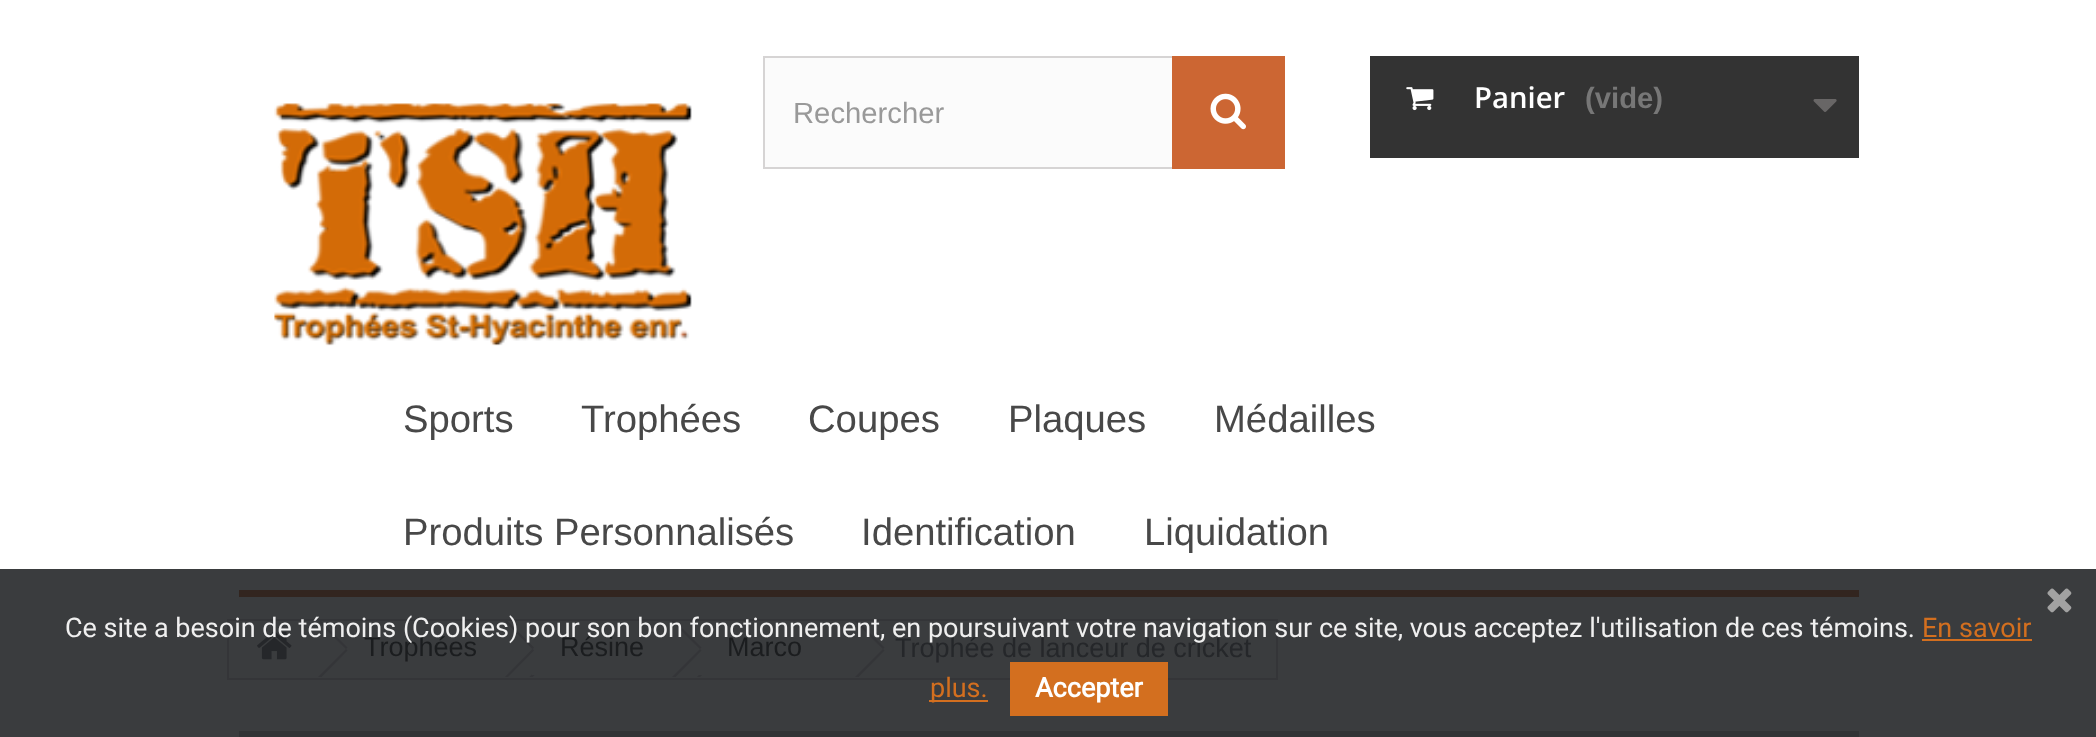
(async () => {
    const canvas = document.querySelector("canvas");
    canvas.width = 2096;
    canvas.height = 737;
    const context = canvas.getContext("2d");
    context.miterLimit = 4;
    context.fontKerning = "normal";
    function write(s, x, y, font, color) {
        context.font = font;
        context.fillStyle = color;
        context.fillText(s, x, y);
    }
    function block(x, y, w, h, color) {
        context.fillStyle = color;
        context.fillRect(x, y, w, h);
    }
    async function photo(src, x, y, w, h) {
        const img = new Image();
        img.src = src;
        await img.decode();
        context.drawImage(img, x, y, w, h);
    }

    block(0, 0, 2096, 737, "rgb(255, 255, 255)");
    block(0, 569, 2096, 168, "rgb(58, 60, 62)");
    await photo("media/1.png", 274, 103, 418, 243);
    block(765, 58, 407, 109, "rgb(251, 251, 251)");
    context.strokeStyle = "rgb(214, 212, 212)";
    context.lineWidth = 2;
    context.strokeRect(764, 57, 520, 111);
    write("Rechercher", 793, 123, "29.25px Liberation Sans", "rgb(153, 153, 153)");
    block(1172, 56, 113, 113, "rgb(204, 102, 51)");
    await photo("media/2.png", 1210, 93, 36, 37);
    block(1370, 56, 489, 102, "rgb(51, 51, 51)");
    await photo("media/3.png", 1406, 87, 28, 24);
    write("Panier", 1474, 108, "600 29.25px Open Sans", "rgb(255, 255, 255)");
    write("(vide)", 1585, 108, "bold 29.25px Liberation Sans", "rgb(119, 119, 119)");
    await photo("media/4.png", 1813, 99, 24, 13);
    block(239, 590, 1620, 7, "rgb(50, 37, 31)");
    write("Sports", 403, 432, "38.25px Liberation Sans", "rgb(72, 72, 72)");
    write("Trophées", 581, 432, "38.25px Liberation Sans", "rgb(72, 72, 72)");
    write("Coupes", 808, 432, "38.25px Liberation Sans", "rgb(72, 72, 72)");
    write("Plaques", 1008, 432, "38.25px Liberation Sans", "rgb(72, 72, 72)");
    write("Médailles", 1214, 432, "38.25px Liberation Sans", "rgb(72, 72, 72)");
    write("Produits Personnalisés", 403, 545, "38.25px Liberation Sans", "rgb(72, 72, 72)");
    write("Identification", 861, 545, "38.25px Liberation Sans", "rgb(72, 72, 72)");
    write("Liquidation", 1144, 545, "38.25px Liberation Sans", "rgb(72, 72, 72)");
    context.strokeStyle = "rgb(52, 53, 56)";
    context.strokeRect(228, 620, 1049, 59);
    await photo("media/5.png", 257, 631, 35, 29);
    context.save();
    context.beginPath();
    context.rect(230, 621, 1046, 56);
    context.clip();
    context.fillStyle = "rgb(52, 53, 56)";
    context.beginPath();
    context.moveTo(319, 619);
    context.lineTo(347.5, 647.5);
    context.lineTo(346, 649);
    context.lineTo(317, 620.5);
    context.closePath();
    context.moveTo(346, 649);
    context.lineTo(347.5, 650.5);
    context.lineTo(319, 679.5);
    context.lineTo(317, 678);
    context.closePath();
    context.fill();
    context.restore();
    write("Trophées", 364, 656, "27px Liberation Sans", "rgb(27, 29, 31)");
    context.save();
    context.beginPath();
    context.rect(230, 621, 1046, 56);
    context.clip();
    context.fillStyle = "rgb(52, 53, 56)";
    context.beginPath();
    context.moveTo(557, 649);
    context.lineTo(559, 650.5);
    context.lineTo(530, 679.5);
    context.lineTo(528.5, 678);
    context.closePath();
    context.fill();
    context.restore();
    block(532, 649, 27, 26, "rgb(58, 60, 62)");
    context.save();
    context.beginPath();
    context.rect(230, 621, 1046, 56);
    context.clip();
    context.fillStyle = "rgb(52, 53, 56)";
    context.beginPath();
    context.moveTo(505.5, 619);
    context.lineTo(534, 647.5);
    context.lineTo(532.5, 649);
    context.lineTo(504, 620.5);
    context.closePath();
    context.moveTo(532.5, 649);
    context.lineTo(534, 650.5);
    context.lineTo(505.5, 679.5);
    context.lineTo(504, 678);
    context.closePath();
    context.fill();
    context.restore();
    write("Résine", 560, 656, "27px Liberation Sans", "rgb(27, 29, 31)");
    context.save();
    context.beginPath();
    context.rect(230, 621, 1046, 56);
    context.clip();
    context.fillStyle = "rgb(52, 53, 56)";
    context.beginPath();
    context.moveTo(724.5, 649);
    context.lineTo(726, 650.5);
    context.lineTo(697.5, 679.5);
    context.lineTo(696, 678);
    context.closePath();
    context.fill();
    context.restore();
    block(699, 649, 27, 26, "rgb(58, 60, 62)");
    context.save();
    context.beginPath();
    context.rect(230, 621, 1046, 56);
    context.clip();
    context.fillStyle = "rgb(52, 53, 56)";
    context.beginPath();
    context.moveTo(673, 619);
    context.lineTo(701.5, 647.5);
    context.lineTo(700, 649);
    context.lineTo(671, 620.5);
    context.closePath();
    context.moveTo(700, 649);
    context.lineTo(701.5, 650.5);
    context.lineTo(673, 679.5);
    context.lineTo(671, 678);
    context.closePath();
    context.fill();
    context.restore();
    write("Marco", 727, 656, "27px Liberation Sans", "rgb(27, 29, 31)");
    context.save();
    context.beginPath();
    context.rect(230, 621, 1046, 56);
    context.clip();
    context.fillStyle = "rgb(52, 53, 56)";
    context.beginPath();
    context.moveTo(856, 619);
    context.lineTo(884.5, 647.5);
    context.lineTo(883, 649);
    context.lineTo(854, 620.5);
    context.closePath();
    context.moveTo(883, 649);
    context.lineTo(884.5, 650.5);
    context.lineTo(856, 679.5);
    context.lineTo(854, 678);
    context.closePath();
    context.fill();
    context.restore();
    write("Trophée de lanceur de cricket", 895, 657, "27px Liberation Sans", "rgb(37, 39, 42)");
    block(239, 731, 1620, 6, "rgb(49, 51, 53)");
    await photo("media/6.png", 2047, 588, 25, 25);
    write("Ce site a besoin de témoins (Cookies) pour son bon fonctionnement, en poursuivant votre navigation sur ce site, vous acceptez l'utilisation de ces témoins.", 65, 637, "27px Roboto", "rgb(239, 239, 239)");
    write("En savoir", 1922, 637, "27px Roboto", "rgb(211, 111, 31)");
    block(1922, 639, 110, 2, "rgb(211, 111, 31)");
    block(929, 700, 59, 2, "rgb(211, 111, 31)");
    write("plus.", 930, 697, "27px Roboto", "rgb(211, 111, 31)");
    block(1010, 662, 158, 54, "rgb(211, 111, 31)");
    write("Accepter", 1035, 697, "bold 27px Roboto", "rgb(255, 255, 255)");
})();
